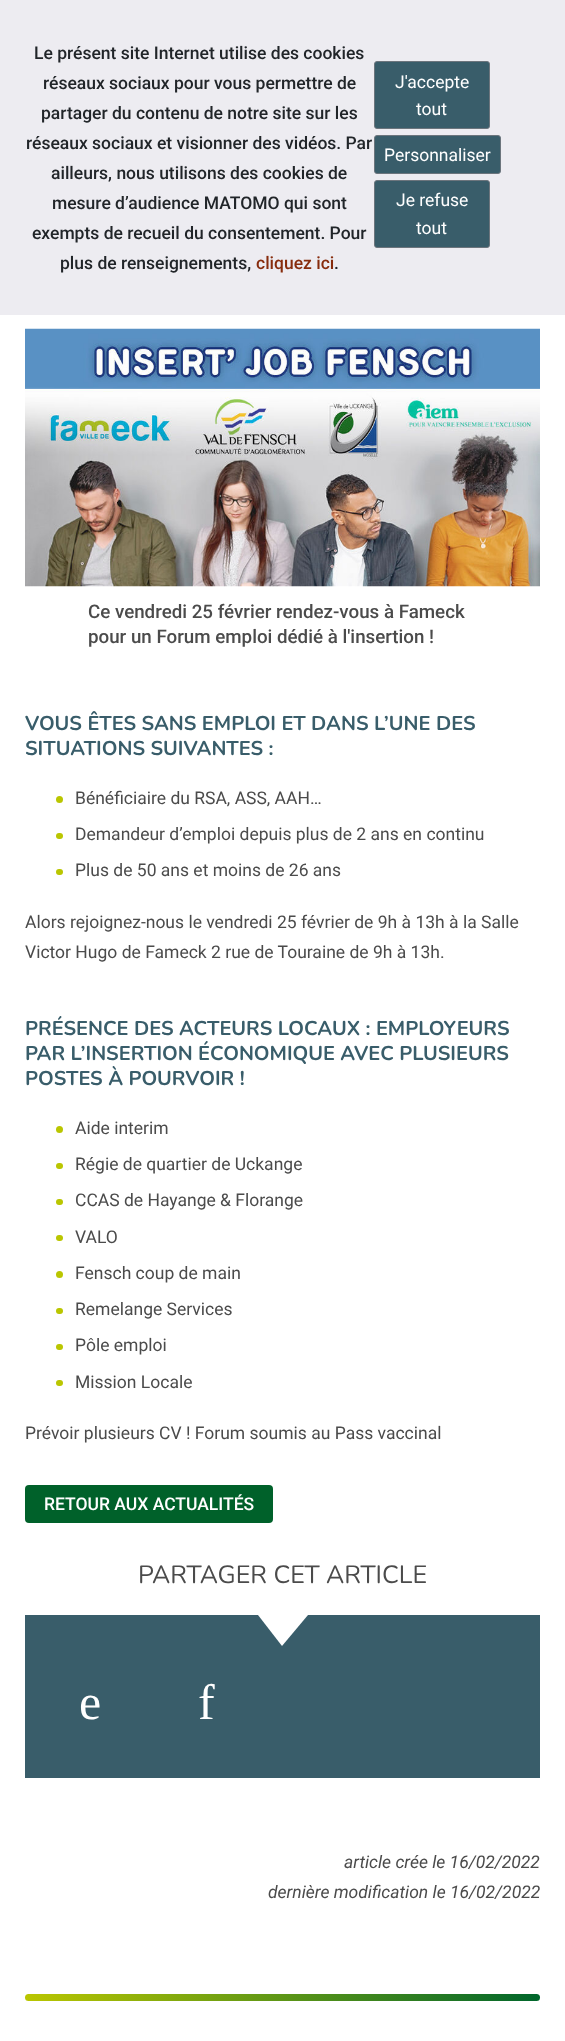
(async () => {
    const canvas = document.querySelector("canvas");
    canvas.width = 565;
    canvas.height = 2041;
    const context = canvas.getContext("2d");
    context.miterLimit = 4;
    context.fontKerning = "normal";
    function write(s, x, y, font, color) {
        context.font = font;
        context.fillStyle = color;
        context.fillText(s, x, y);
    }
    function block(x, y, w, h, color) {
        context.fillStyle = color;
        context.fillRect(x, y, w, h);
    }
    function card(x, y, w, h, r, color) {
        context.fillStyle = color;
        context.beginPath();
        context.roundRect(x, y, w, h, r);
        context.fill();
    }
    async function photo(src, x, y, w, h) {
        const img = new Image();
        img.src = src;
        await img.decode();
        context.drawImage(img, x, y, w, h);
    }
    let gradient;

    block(0, 0, 565, 2041, "rgb(255, 255, 255)");
    block(0, 0, 565, 315, "rgb(237, 236, 241)");
    write("Le présent site Internet utilise des cookies", 34, 59, "500 17.5px Roboto", "rgb(33, 37, 41)");
    write("réseaux sociaux pour vous permettre de", 43, 89, "500 17.5px Roboto", "rgb(33, 37, 41)");
    write("partager du contenu de notre site sur les", 41, 119, "500 17.5px Roboto", "rgb(33, 37, 41)");
    write("réseaux sociaux et visionner des vidéos. Par", 26, 149, "500 17.5px Roboto", "rgb(33, 37, 41)");
    write("ailleurs, nous utilisons des cookies de", 51, 179, "500 17.5px Roboto", "rgb(33, 37, 41)");
    write("mesure d’audience MATOMO qui sont", 52, 209, "500 17.5px Roboto", "rgb(33, 37, 41)");
    write("exempts de recueil du consentement. Pour", 32, 239, "500 17.5px Roboto", "rgb(33, 37, 41)");
    write("plus de renseignements,", 60, 269, "500 17.5px Roboto", "rgb(33, 37, 41)");
    write("cliquez ici", 256, 269, "500 17.5px Roboto", "rgb(135, 44, 13)");
    write(".", 334, 269, "500 17.5px Roboto", "rgb(33, 37, 41)");
    context.fillStyle = "rgb(57, 93, 106)";
    context.beginPath();
    context.roundRect(374.5, 61.5, 115, 67, 2.5);
    context.fill();
    context.strokeStyle = "rgb(108, 117, 125)";
    context.stroke();
    write("J'accepte", 395, 88, "17.5px Roboto", "rgb(255, 255, 255)");
    write("tout", 416, 115, "17.5px Roboto", "rgb(255, 255, 255)");
    context.fillStyle = "rgb(57, 93, 106)";
    context.beginPath();
    context.roundRect(374.5, 135.5, 126, 38, 2.5);
    context.fill();
    context.stroke();
    write("Personnaliser", 384, 161, "17.5px Roboto", "rgb(255, 255, 255)");
    context.fillStyle = "rgb(57, 93, 106)";
    context.beginPath();
    context.roundRect(374.5, 180.5, 115, 67, 2.5);
    context.fill();
    context.stroke();
    write("Je refuse", 396, 206, "17.5px Roboto", "rgb(255, 255, 255)");
    write("tout", 416, 234, "17.5px Roboto", "rgb(255, 255, 255)");
    await photo("media/1.png", 25, 328, 515, 259);
    write("Ce vendredi 25 février rendez-vous à Fameck", 88, 618, "500 18.75px Roboto", "rgb(75, 75, 75)");
    write("pour un Forum emploi dédié à l'insertion !", 88, 643, "500 18.75px Roboto", "rgb(75, 75, 75)");
    write("VOUS ÊTES SANS EMPLOI ET DANS L’UNE DES", 25, 730, "bold 20px Nunito", "rgb(57, 93, 106)");
    write("SITUATIONS SUIVANTES :", 25, 755, "bold 20px Nunito", "rgb(57, 93, 106)");
    context.fillStyle = "rgb(186, 198, 0)";
    context.beginPath();
    context.arc(59.5, 799.5, 3.5, 0, Math.PI * 2);
    context.fill();
    write("Bénéficiaire du RSA, ASS, AAH…", 75, 804, "17.5px Roboto", "rgb(75, 75, 75)");
    card(56, 833, 7, 6, 3, "rgb(186, 198, 0)");
    write("Demandeur d’emploi depuis plus de 2 ans en continu", 75, 840, "17.5px Roboto", "rgb(75, 75, 75)");
    card(56, 869, 7, 6, 3, "rgb(186, 198, 0)");
    write("Plus de 50 ans et moins de 26 ans", 75, 876, "17.5px Roboto", "rgb(75, 75, 75)");
    write("Alors rejoignez-nous le vendredi 25 février de 9h à 13h à la Salle", 25, 928, "17.5px Roboto", "rgb(75, 75, 75)");
    write("Victor Hugo de Fameck 2 rue de Touraine de 9h à 13h.", 25, 958, "17.5px Roboto", "rgb(75, 75, 75)");
    write("PRÉSENCE DES ACTEURS LOCAUX : EMPLOYEURS", 25, 1035, "bold 20px Nunito", "rgb(57, 93, 106)");
    write("PAR L’INSERTION ÉCONOMIQUE AVEC PLUSIEURS", 25, 1060, "bold 20px Nunito", "rgb(57, 93, 106)");
    write("POSTES À POURVOIR !", 25, 1085, "bold 20px Nunito", "rgb(57, 93, 106)");
    context.fillStyle = "rgb(186, 198, 0)";
    context.beginPath();
    context.arc(59.5, 1129.5, 3.5, 0, Math.PI * 2);
    context.fill();
    write("Aide interim", 75, 1134, "17.5px Roboto", "rgb(75, 75, 75)");
    card(56, 1163, 7, 6, 3, "rgb(186, 198, 0)");
    write("Régie de quartier de Uckange", 75, 1170, "17.5px Roboto", "rgb(75, 75, 75)");
    card(56, 1199, 7, 6, 3, "rgb(186, 198, 0)");
    write("CCAS de Hayange & Florange", 75, 1206, "17.5px Roboto", "rgb(75, 75, 75)");
    card(56, 1235, 7, 6, 3, "rgb(186, 198, 0)");
    write("VALO", 75, 1243, "17.5px Roboto", "rgb(75, 75, 75)");
    context.fillStyle = "rgb(186, 198, 0)";
    context.beginPath();
    context.arc(59.5, 1274.5, 3.5, 0, Math.PI * 2);
    context.fill();
    write("Fensch coup de main", 75, 1279, "17.5px Roboto", "rgb(75, 75, 75)");
    card(56, 1308, 7, 6, 3, "rgb(186, 198, 0)");
    write("Remelange Services", 75, 1315, "17.5px Roboto", "rgb(75, 75, 75)");
    card(56, 1344, 7, 6, 3, "rgb(186, 198, 0)");
    write("Pôle emploi", 75, 1351, "17.5px Roboto", "rgb(75, 75, 75)");
    card(56, 1380, 7, 6, 3, "rgb(186, 198, 0)");
    write("Mission Locale", 75, 1388, "17.5px Roboto", "rgb(75, 75, 75)");
    write("Prévoir plusieurs CV ! Forum soumis au Pass vaccinal", 25, 1439, "17.5px Roboto", "rgb(75, 75, 75)");
    card(25, 1485, 248, 38, 4, "rgb(0, 97, 42)");
    write("RETOUR AUX ACTUALITÉS", 44, 1510, "500 17.5px Roboto", "rgb(255, 255, 255)");
    write("PARTAGER CET ARTICLE", 138, 1583, "25px Nunito", "rgb(75, 75, 75)");
    block(25, 1615, 515, 163, "rgb(57, 93, 106)");
    context.fillStyle = "rgb(255, 255, 255)";
    context.beginPath();
    context.moveTo(258, 1615);
    context.lineTo(308, 1615);
    context.lineTo(282, 1646);
    context.closePath();
    context.fill();
    write("e", 79, 1719, "50px Liberation Serif", "rgb(255, 255, 255)");
    write("f", 198, 1719, "50px Liberation Serif", "rgb(255, 255, 255)");
    write("article crée le 16/02/2022", 344, 1868, "italic 17.5px Roboto", "rgb(75, 75, 75)");
    write("dernière modification le 16/02/2022", 268, 1898, "italic 17.5px Roboto", "rgb(75, 75, 75)");
    gradient = context.createLinearGradient(25, 1998, 540, 1998);
    gradient.addColorStop(0, "rgb(186, 198, 0)");
    gradient.addColorStop(1, "rgb(0, 102, 44)");
    context.fillStyle = gradient;
    context.beginPath();
    context.roundRect(25, 1994, 515, 7, 3.5);
    context.fill();
})();
